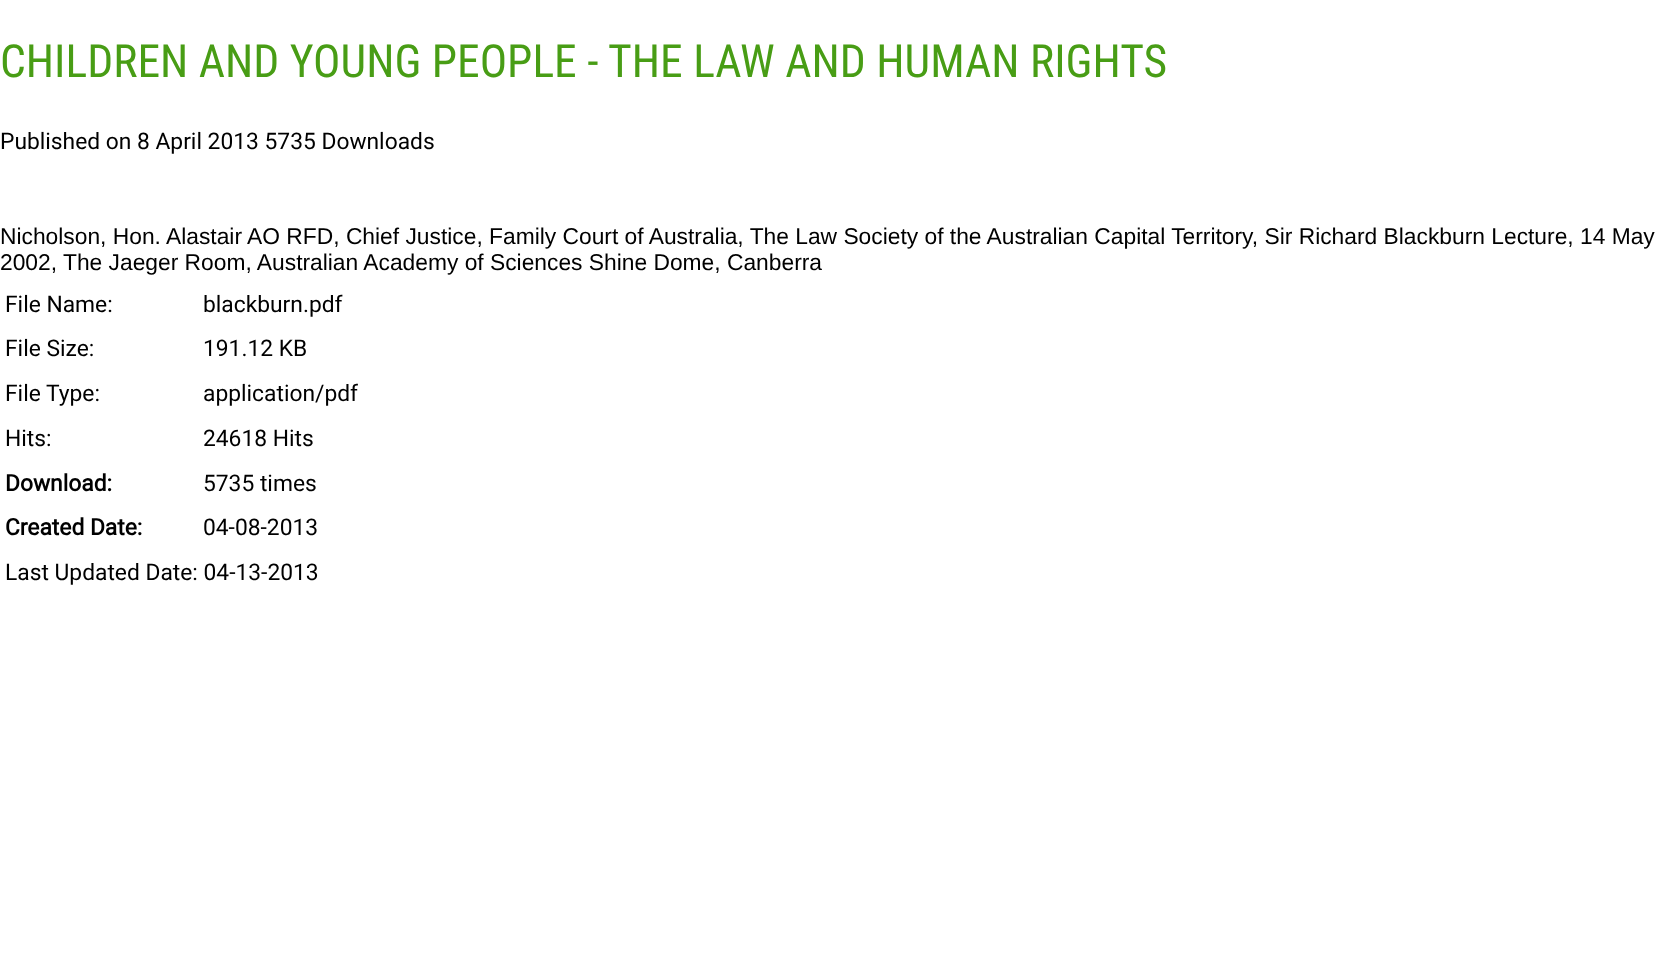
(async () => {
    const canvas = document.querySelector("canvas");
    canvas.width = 1663;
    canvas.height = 974;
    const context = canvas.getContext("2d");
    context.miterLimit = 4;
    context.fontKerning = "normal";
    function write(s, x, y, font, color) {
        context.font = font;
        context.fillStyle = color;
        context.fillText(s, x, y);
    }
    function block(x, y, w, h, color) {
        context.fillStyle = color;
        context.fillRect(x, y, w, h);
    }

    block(0, 0, 1663, 974, "rgb(255, 255, 255)");
    write("CHILDREN AND YOUNG PEOPLE - THE LAW AND HUMAN RIGHTS", 0, 77, "45.6px Roboto Condensed", "rgb(72, 157, 21)");
    write("Published on 8 April 2013 5735 Downloads", 0, 149, "22.8px Roboto", "rgb(0, 0, 0)");
    write("Nicholson, Hon. Alastair AO RFD, Chief Justice, Family Court of Australia, The Law Society of the Australian Capital Territory, Sir Richard Blackburn Lecture, 14 May", 0, 244, "22.8px Liberation Sans", "rgb(0, 0, 0)");
    write("2002, The Jaeger Room, Australian Academy of Sciences Shine Dome, Canberra", 0, 270, "22.8px Liberation Sans", "rgb(0, 0, 0)");
    write("File Name:", 5, 312, "22.8px Roboto", "rgb(0, 0, 0)");
    write("blackburn.pdf", 203, 312, "22.8px Roboto", "rgb(0, 0, 0)");
    write("File Size:", 5, 356, "22.8px Roboto", "rgb(0, 0, 0)");
    write("191.12 KB", 203, 356, "22.8px Roboto", "rgb(0, 0, 0)");
    write("File Type:", 5, 401, "22.8px Roboto", "rgb(0, 0, 0)");
    write("application/pdf", 203, 401, "22.8px Roboto", "rgb(0, 0, 0)");
    write("Hits:", 5, 446, "22.8px Roboto", "rgb(0, 0, 0)");
    write("24618 Hits", 203, 446, "22.8px Roboto", "rgb(0, 0, 0)");
    write("Download:", 5, 491, "bold 22.8px Roboto", "rgb(0, 0, 0)");
    write("5735 times", 203, 491, "22.8px Roboto", "rgb(0, 0, 0)");
    write("Created Date:", 5, 535, "bold 22.8px Roboto", "rgb(0, 0, 0)");
    write("04-08-2013", 203, 535, "22.8px Roboto", "rgb(0, 0, 0)");
    write("Last Updated Date: 04-13-2013", 5, 580, "22.8px Roboto", "rgb(0, 0, 0)");
})();
